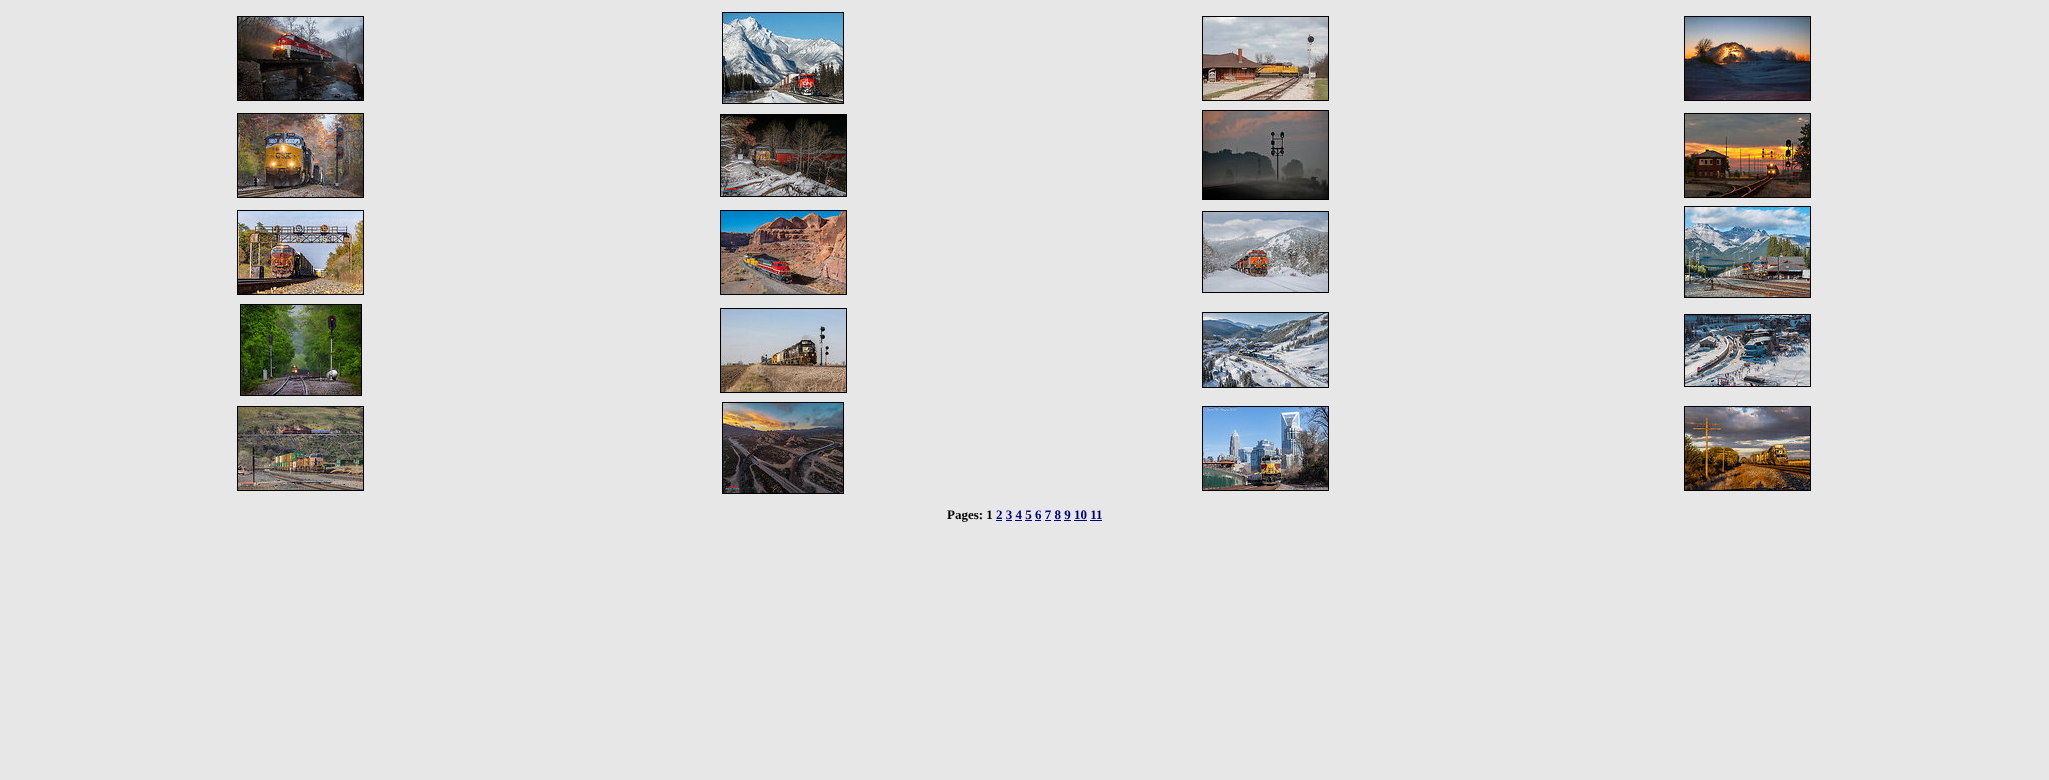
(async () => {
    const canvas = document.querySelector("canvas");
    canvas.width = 2049;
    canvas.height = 780;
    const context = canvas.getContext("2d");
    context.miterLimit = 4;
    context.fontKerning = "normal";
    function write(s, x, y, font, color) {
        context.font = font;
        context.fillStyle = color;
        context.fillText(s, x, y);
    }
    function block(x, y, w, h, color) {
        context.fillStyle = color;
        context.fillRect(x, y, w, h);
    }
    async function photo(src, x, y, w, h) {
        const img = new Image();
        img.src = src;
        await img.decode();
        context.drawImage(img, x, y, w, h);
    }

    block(0, 0, 2049, 780, "rgb(231, 231, 231)");
    context.strokeStyle = "rgb(0, 0, 0)";
    context.strokeRect(237.5, 16.5, 126, 84);
    await photo("media/1.png", 238, 17, 125, 83);
    context.strokeRect(722.5, 12.5, 121, 91);
    await photo("media/2.png", 723, 13, 120, 90);
    context.strokeRect(1202.5, 16.5, 126, 84);
    await photo("media/3.png", 1203, 17, 125, 83);
    context.strokeRect(1684.5, 16.5, 126, 84);
    await photo("media/4.png", 1685, 17, 125, 83);
    context.strokeRect(237.5, 113.5, 126, 84);
    await photo("media/5.png", 238, 114, 125, 83);
    context.strokeRect(720.5, 114.5, 126, 82);
    await photo("media/6.png", 721, 115, 125, 81);
    context.strokeRect(1202.5, 110.5, 126, 89);
    await photo("media/7.png", 1203, 111, 125, 88);
    context.strokeRect(1684.5, 113.5, 126, 84);
    await photo("media/8.png", 1685, 114, 125, 83);
    context.strokeRect(237.5, 210.5, 126, 84);
    await photo("media/9.png", 238, 211, 125, 83);
    context.strokeRect(720.5, 210.5, 126, 84);
    await photo("media/10.png", 721, 211, 125, 83);
    context.strokeRect(1202.5, 211.5, 126, 81);
    await photo("media/11.png", 1203, 212, 125, 80);
    context.strokeRect(1684.5, 206.5, 126, 91);
    await photo("media/12.png", 1685, 207, 125, 90);
    context.strokeRect(240.5, 304.5, 121, 91);
    await photo("media/13.png", 241, 305, 120, 90);
    context.strokeRect(720.5, 308.5, 126, 84);
    await photo("media/14.png", 721, 309, 125, 83);
    context.strokeRect(1202.5, 312.5, 126, 75);
    await photo("media/15.png", 1203, 313, 125, 74);
    context.strokeRect(1684.5, 314.5, 126, 72);
    await photo("media/16.png", 1685, 315, 125, 71);
    context.strokeRect(237.5, 406.5, 126, 84);
    await photo("media/17.png", 238, 407, 125, 83);
    context.strokeRect(722.5, 402.5, 121, 91);
    await photo("media/18.png", 723, 403, 120, 90);
    context.strokeRect(1202.5, 406.5, 126, 84);
    await photo("media/19.png", 1203, 407, 125, 83);
    context.strokeRect(1684.5, 406.5, 126, 84);
    await photo("media/20.png", 1685, 407, 125, 83);
    write("Pages: 1", 947, 519, "bold 13px Liberation Serif", "rgb(0, 0, 0)");
    write("2 3 4 5 6 7 8 9 10 11", 996, 519, "bold 13px Liberation Serif", "rgb(0, 0, 128)");
    block(996, 520, 6, 1, "rgb(0, 0, 128)");
    block(1006, 520, 6, 1, "rgb(0, 0, 128)");
    block(1015, 520, 7, 1, "rgb(0, 0, 128)");
    block(1025, 520, 7, 1, "rgb(0, 0, 128)");
    block(1035, 520, 6, 1, "rgb(0, 0, 128)");
    block(1045, 520, 6, 1, "rgb(0, 0, 128)");
    block(1054, 520, 7, 1, "rgb(0, 0, 128)");
    block(1064, 520, 7, 1, "rgb(0, 0, 128)");
    block(1074, 520, 13, 1, "rgb(0, 0, 128)");
    block(1090, 520, 12, 1, "rgb(0, 0, 128)");
})();
